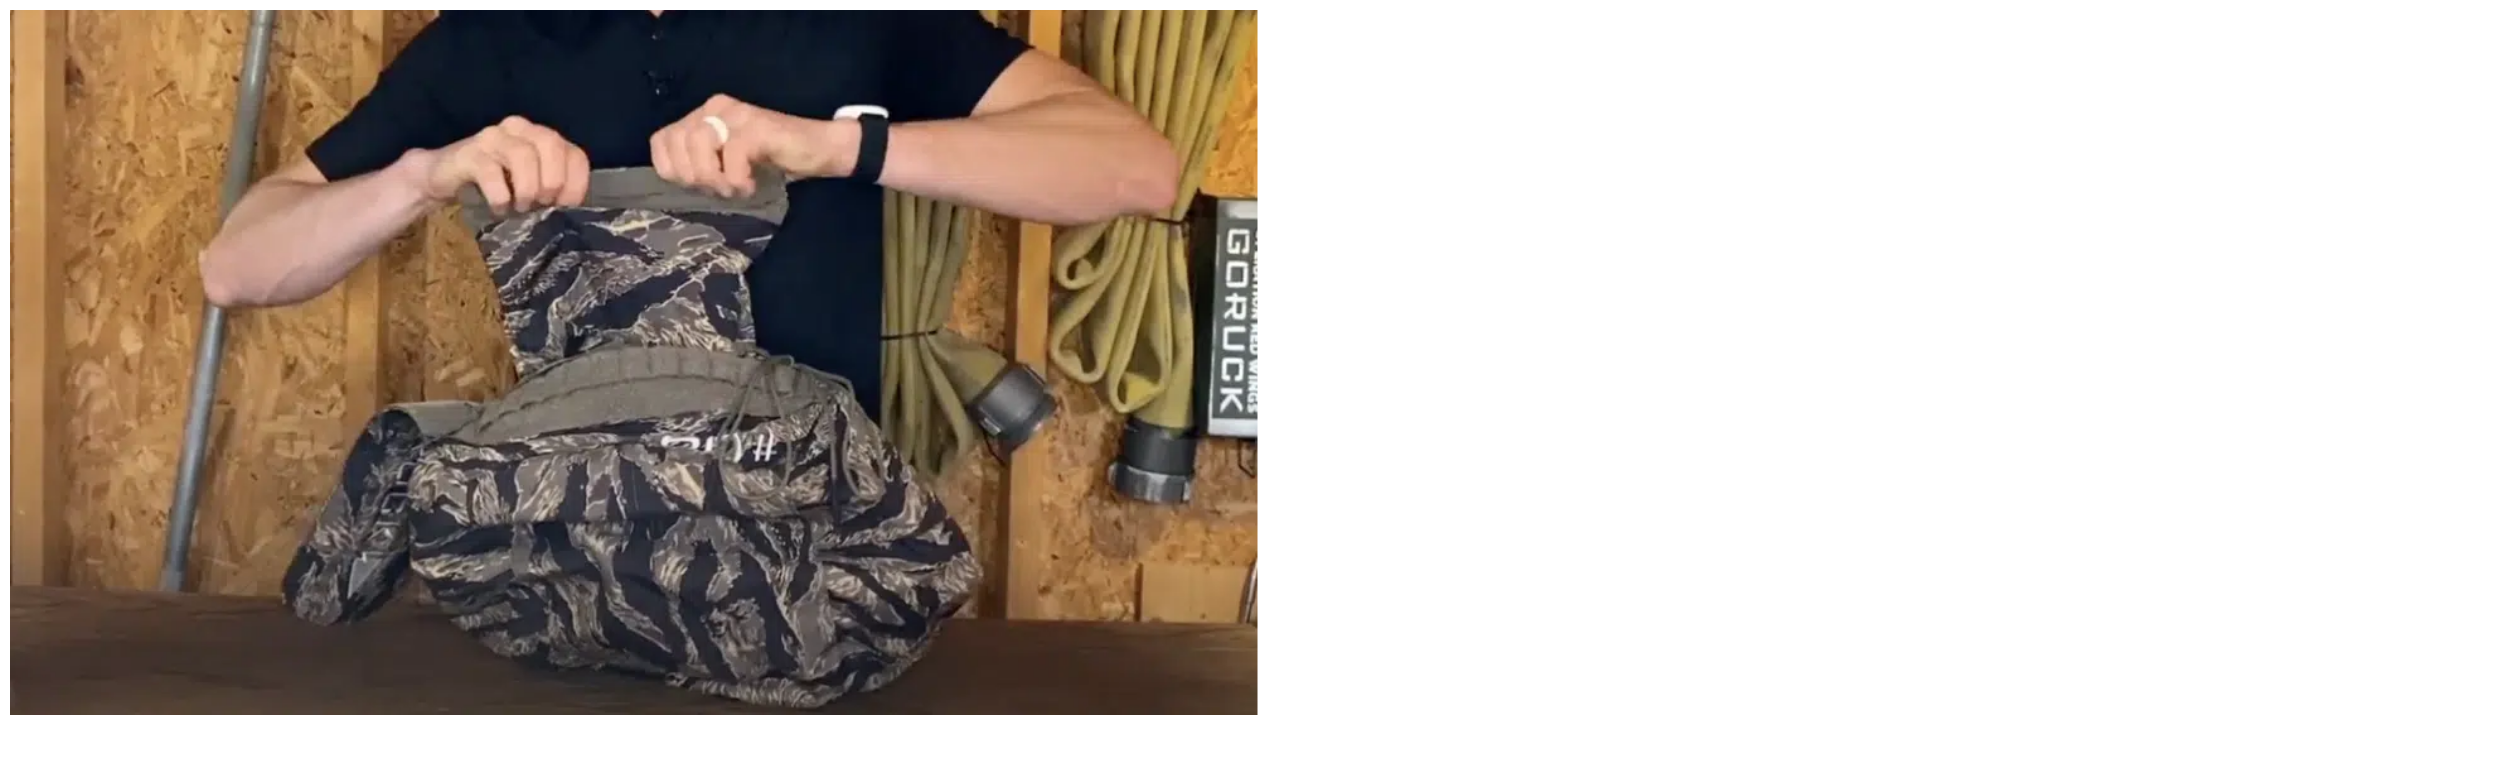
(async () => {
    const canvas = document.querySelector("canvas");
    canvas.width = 2505;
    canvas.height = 759;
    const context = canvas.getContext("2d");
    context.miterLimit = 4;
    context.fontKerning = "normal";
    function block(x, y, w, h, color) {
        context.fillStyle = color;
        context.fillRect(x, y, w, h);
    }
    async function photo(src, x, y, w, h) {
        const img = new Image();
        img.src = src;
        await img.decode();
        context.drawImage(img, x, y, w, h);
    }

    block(0, 0, 2505, 759, "rgb(255, 255, 255)");
    await photo("media/1.png", 10, 10, 1248, 705);
})();
